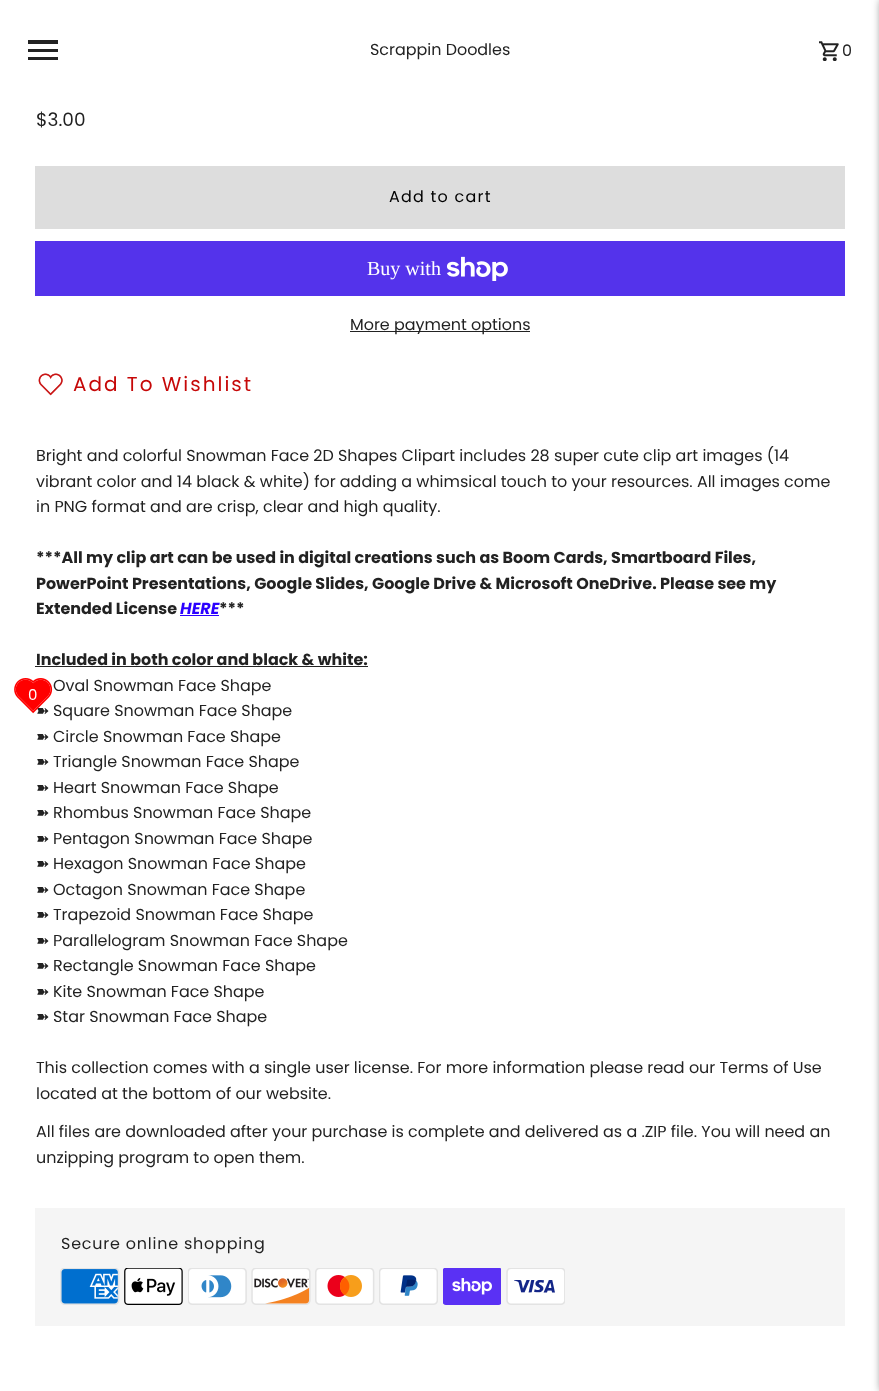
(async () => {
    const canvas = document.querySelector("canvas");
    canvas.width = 879;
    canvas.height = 1391;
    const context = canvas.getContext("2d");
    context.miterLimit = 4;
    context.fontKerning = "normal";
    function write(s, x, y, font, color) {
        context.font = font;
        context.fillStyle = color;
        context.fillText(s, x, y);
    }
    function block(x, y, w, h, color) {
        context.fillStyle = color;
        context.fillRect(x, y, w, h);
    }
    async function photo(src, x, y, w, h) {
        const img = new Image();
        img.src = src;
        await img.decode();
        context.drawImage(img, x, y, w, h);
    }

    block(0, 0, 879, 1391, "rgb(255, 255, 255)");
    write("➽", 36, 716, "15.95px DejaVu Sans", "rgb(34, 34, 34)");
    await photo("media/1.png", 14, 678, 39, 36);
    write("0", 28, 700, "15px Poppins", "rgb(255, 255, 255)");
    context.fillStyle = "rgba(0, 0, 0, 0.5)";
    context.filter = "blur(4.5px)";
    context.beginPath();
    context.rect(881, 0, 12, 1391);
    context.fill();
    context.filter = "none";
    block(28, 57, 30, 3, "rgb(34, 34, 34)");
    block(28, 49, 30, 3, "rgb(34, 34, 34)");
    block(28, 40, 30, 4, "rgb(34, 34, 34)");
    write("Scrappin Doodles", 370, 55, "15.95px Poppins", "rgb(34, 34, 34)");
    await photo("media/2.png", 819, 41, 20, 20);
    write("0", 842, 56, "15.95px Poppins", "rgb(34, 34, 34)");
    write("$3.00", 36, 126, "18.5px Poppins", "rgb(34, 34, 34)");
    block(35, 166, 810, 63, "rgb(221, 221, 221)");
    context.letterSpacing = "1.25px";
    write("Add to cart", 389, 202, "15.95px Poppins", "rgb(0, 0, 0)");
    block(35, 241, 810, 55, "rgb(84, 51, 235)");
    context.letterSpacing = "0px";
    write("Buy with", 367, 275, "20px Liberation Serif", "rgb(255, 255, 255)");
    await photo("media/3.png", 446, 256, 62, 25);
    block(350, 331, 180, 1, "rgb(34, 34, 34)");
    write("More payment options", 350, 330, "15.95px Poppins", "rgb(34, 34, 34)");
    await photo("media/4.png", 38, 373, 25, 23);
    context.letterSpacing = "2px";
    write("Add To Wishlist", 73, 391, "20px Poppins", "rgb(198, 8, 8)");
    context.letterSpacing = "0px";
    write("Bright and colorful Snowman Face 2D Shapes Clipart includes 28 super cute clip art images (14", 36, 461, "15.95px Poppins", "rgb(34, 34, 34)");
    write("vibrant color and 14 black & white) for adding a whimsical touch to your resources. All images come", 36, 487, "15.95px Poppins", "rgb(34, 34, 34)");
    write("in PNG format and are crisp, clear and high quality.", 36, 512, "15.95px Poppins", "rgb(34, 34, 34)");
    write("***All my clip art can be used in digital creations such as Boom Cards, Smartboard Files,", 36, 563, "bold 15.95px Poppins", "rgb(34, 34, 34)");
    write("PowerPoint Presentations, Google Slides, Google Drive & Microsoft OneDrive. Please see my", 36, 589, "bold 15.95px Poppins", "rgb(34, 34, 34)");
    write("Extended License", 36, 614, "bold 15.95px Poppins", "rgb(34, 34, 34)");
    write("HERE", 180, 614, "italic bold 15.95px Poppins", "rgb(43, 0, 255)");
    block(180, 615, 39, 1, "rgb(43, 0, 255)");
    write("***", 219, 614, "bold 15.95px Poppins", "rgb(34, 34, 34)");
    write("Included in both color and black & white:", 36, 665, "bold 15.95px Poppins", "rgb(34, 34, 34)");
    block(35, 666, 333, 1, "rgb(34, 34, 34)");
    write("Oval Snowman Face Shape", 53, 691, "15.95px Poppins", "rgb(34, 34, 34)");
    write("Square Snowman Face Shape", 53, 716, "15.95px Poppins", "rgb(34, 34, 34)");
    write("➽", 36, 742, "15.95px DejaVu Sans", "rgb(34, 34, 34)");
    write("Circle Snowman Face Shape", 53, 742, "15.95px Poppins", "rgb(34, 34, 34)");
    write("➽", 36, 767, "15.95px DejaVu Sans", "rgb(34, 34, 34)");
    write("Triangle Snowman Face Shape", 53, 767, "15.95px Poppins", "rgb(34, 34, 34)");
    write("➽", 36, 793, "15.95px DejaVu Sans", "rgb(34, 34, 34)");
    write("Heart Snowman Face Shape", 53, 793, "15.95px Poppins", "rgb(34, 34, 34)");
    write("➽", 36, 818, "15.95px DejaVu Sans", "rgb(34, 34, 34)");
    write("Rhombus Snowman Face Shape", 53, 818, "15.95px Poppins", "rgb(34, 34, 34)");
    write("➽", 36, 844, "15.95px DejaVu Sans", "rgb(34, 34, 34)");
    write("Pentagon Snowman Face Shape", 53, 844, "15.95px Poppins", "rgb(34, 34, 34)");
    write("➽", 36, 869, "15.95px DejaVu Sans", "rgb(34, 34, 34)");
    write("Hexagon Snowman Face Shape", 53, 869, "15.95px Poppins", "rgb(34, 34, 34)");
    write("➽", 36, 895, "15.95px DejaVu Sans", "rgb(34, 34, 34)");
    write("Octagon Snowman Face Shape", 53, 895, "15.95px Poppins", "rgb(34, 34, 34)");
    write("➽", 36, 920, "15.95px DejaVu Sans", "rgb(34, 34, 34)");
    write("Trapezoid Snowman Face Shape", 53, 920, "15.95px Poppins", "rgb(34, 34, 34)");
    write("➽", 36, 946, "15.95px DejaVu Sans", "rgb(34, 34, 34)");
    write("Parallelogram Snowman Face Shape", 53, 946, "15.95px Poppins", "rgb(34, 34, 34)");
    write("➽", 36, 971, "15.95px DejaVu Sans", "rgb(34, 34, 34)");
    write("Rectangle Snowman Face Shape", 53, 971, "15.95px Poppins", "rgb(34, 34, 34)");
    write("➽", 36, 997, "15.95px DejaVu Sans", "rgb(34, 34, 34)");
    write("Kite Snowman Face Shape", 53, 997, "15.95px Poppins", "rgb(34, 34, 34)");
    write("➽", 36, 1022, "15.95px DejaVu Sans", "rgb(34, 34, 34)");
    write("Star Snowman Face Shape", 53, 1022, "15.95px Poppins", "rgb(34, 34, 34)");
    write("This collection comes with a single user license. For more information please read our Terms of Use", 36, 1073, "15.95px Poppins", "rgb(34, 34, 34)");
    write("located at the bottom of our website.", 36, 1099, "15.95px Poppins", "rgb(34, 34, 34)");
    write("All files are downloaded after your purchase is complete and delivered as a .ZIP file. You will need an", 36, 1137, "15.95px Poppins", "rgb(34, 34, 34)");
    write("unzipping program to open them.", 36, 1163, "15.95px Poppins", "rgb(34, 34, 34)");
    block(35, 1208, 810, 118, "rgb(245, 245, 245)");
    context.letterSpacing = "0.8px";
    write("Secure online shopping", 61, 1249, "15.95px Poppins", "rgb(34, 34, 34)");
    await photo("media/5.png", 60, 1268, 60, 37);
    await photo("media/6.png", 124, 1268, 59, 37);
    await photo("media/7.png", 188, 1268, 59, 37);
    await photo("media/8.png", 251, 1268, 60, 37);
    await photo("media/9.png", 315, 1268, 60, 37);
    await photo("media/10.png", 379, 1268, 59, 37);
    await photo("media/11.png", 443, 1268, 58, 37);
    await photo("media/12.png", 506, 1268, 59, 37);
})();
